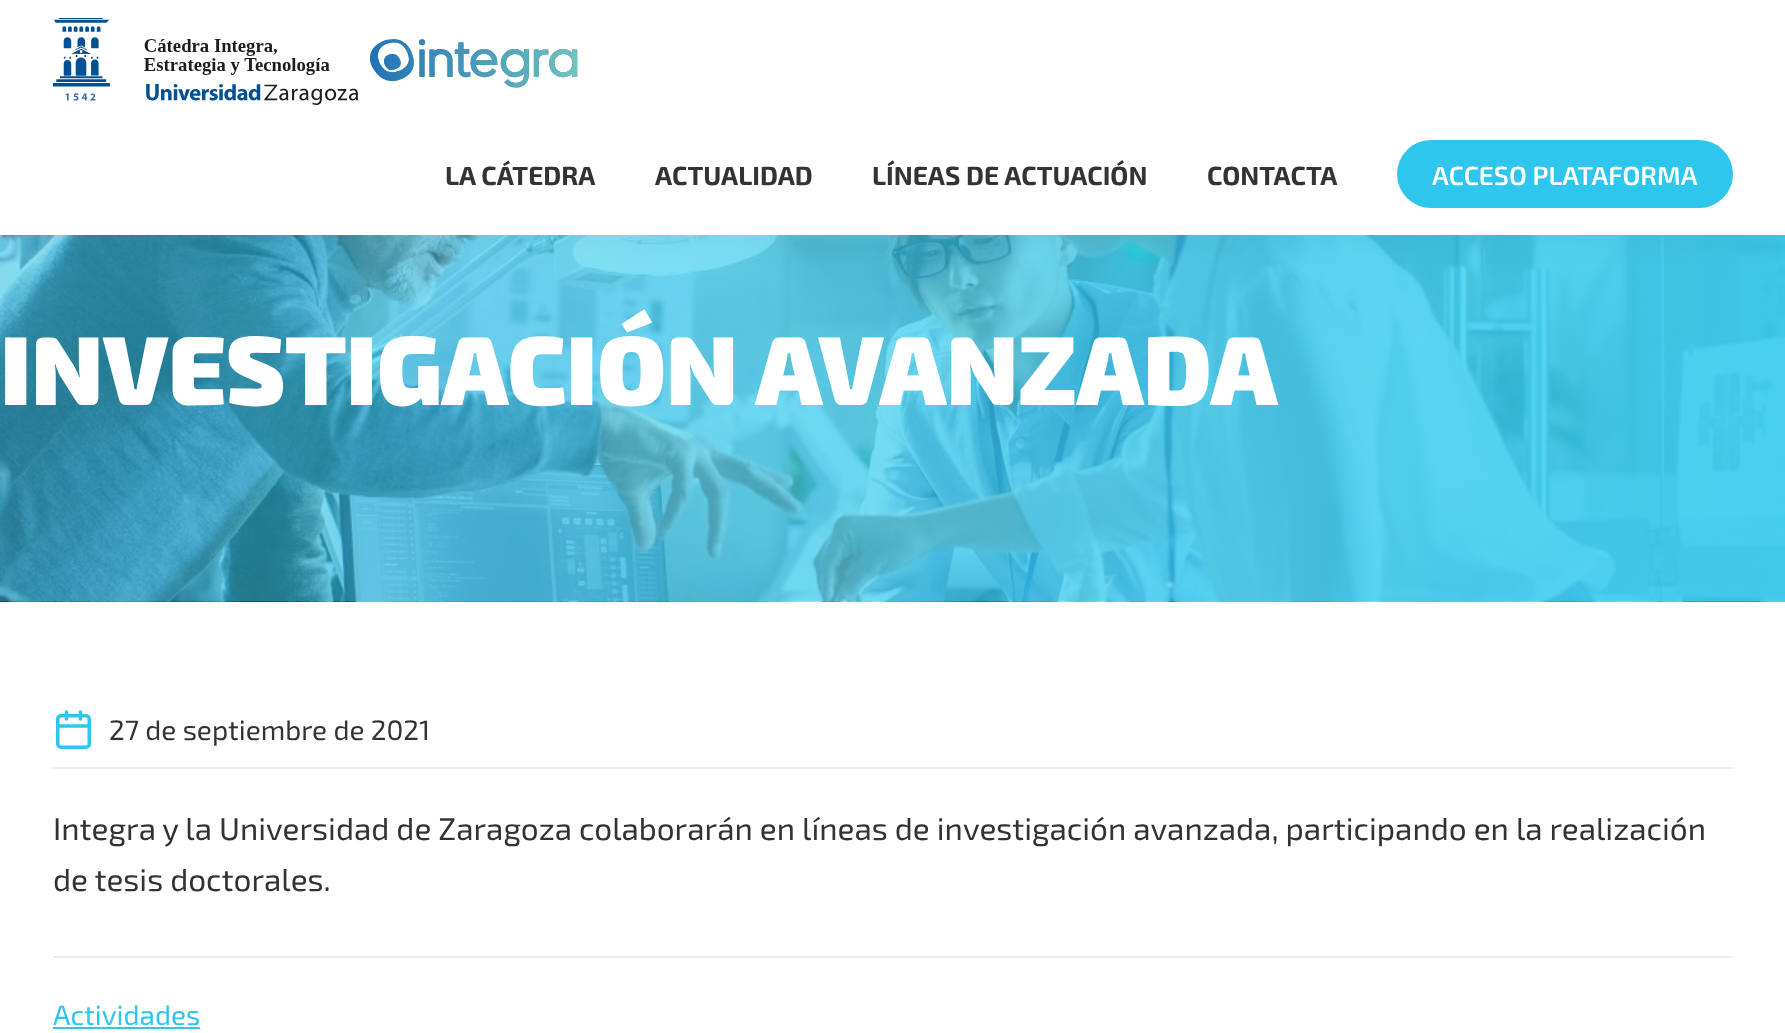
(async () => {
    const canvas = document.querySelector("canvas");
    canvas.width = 1785;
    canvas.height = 1033;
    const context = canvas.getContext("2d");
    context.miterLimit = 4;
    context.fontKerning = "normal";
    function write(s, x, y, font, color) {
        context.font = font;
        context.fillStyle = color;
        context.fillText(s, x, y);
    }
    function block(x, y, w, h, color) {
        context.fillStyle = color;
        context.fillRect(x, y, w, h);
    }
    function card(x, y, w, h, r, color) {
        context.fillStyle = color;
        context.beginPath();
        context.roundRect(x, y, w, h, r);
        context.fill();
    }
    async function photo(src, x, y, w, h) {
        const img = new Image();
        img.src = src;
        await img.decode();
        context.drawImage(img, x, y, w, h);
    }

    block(0, 0, 1785, 1033, "rgb(255, 255, 255)");
    await photo("media/2.png", 0, 235, 1785, 367);
    context.fillStyle = "rgba(0, 0, 0, 0.05)";
    context.filter = "blur(17.5px)";
    context.beginPath();
    context.rect(0, 0, 1785, 235);
    context.fill();
    context.filter = "none";
    block(0, 0, 1785, 235, "rgb(255, 255, 255)");
    await photo("media/1.png", 53, 18, 525, 87);
    write("LA CÁTEDRA", 445, 185, "bold 26.25px 'Exo 2'", "rgb(51, 51, 51)");
    write("ACTUALIDAD", 655, 185, "bold 26.25px 'Exo 2'", "rgb(51, 51, 51)");
    write("LÍNEAS DE ACTUACIÓN", 872, 185, "bold 26.25px 'Exo 2'", "rgb(51, 51, 51)");
    write("CONTACTA", 1207, 185, "bold 26.25px 'Exo 2'", "rgb(51, 51, 51)");
    card(1397, 140, 336, 68, 34, "rgb(46, 198, 236)");
    write("ACCESO PLATAFORMA", 1432, 185, "600 26.25px 'Exo 2'", "rgb(255, 255, 255)");
    context.letterSpacing = "-0.5px";
    write("INVESTIGACIÓN AVANZADA", 0, 405, "900 98px 'Exo 2'", "rgb(255, 255, 255)");
    block(53, 767, 1680, 2, "rgb(238, 238, 238)");
    context.beginPath();
    context.roundRect(57.75, 715.75, 31.5, 31.5, 3.25);
    context.strokeStyle = "rgb(46, 198, 236)";
    context.lineWidth = 3.5;
    context.stroke();
    context.beginPath();
    context.moveTo(80.5, 712);
    context.lineTo(80.5, 719);
    context.moveTo(66.5, 712);
    context.lineTo(66.5, 719);
    context.moveTo(58, 726);
    context.lineTo(89, 726);
    context.lineCap = "round";
    context.lineJoin = "round";
    context.stroke();
    context.letterSpacing = "0px";
    write("27 de septiembre de 2021", 109, 740, "28px 'Exo 2'", "rgb(51, 51, 51)");
    write("Integra y la Universidad de Zaragoza colaborarán en líneas de investigación avanzada, participando en la realización", 53, 840, "31.5px 'Exo 2'", "rgb(51, 51, 51)");
    write("de tesis doctorales.", 53, 891, "31.5px 'Exo 2'", "rgb(51, 51, 51)");
    block(53, 956, 1680, 2, "rgb(238, 238, 238)");
    write("Actividades", 53, 1025, "28px 'Exo 2'", "rgb(46, 198, 236)");
    block(53, 1027, 147, 2, "rgb(46, 198, 236)");
})();
